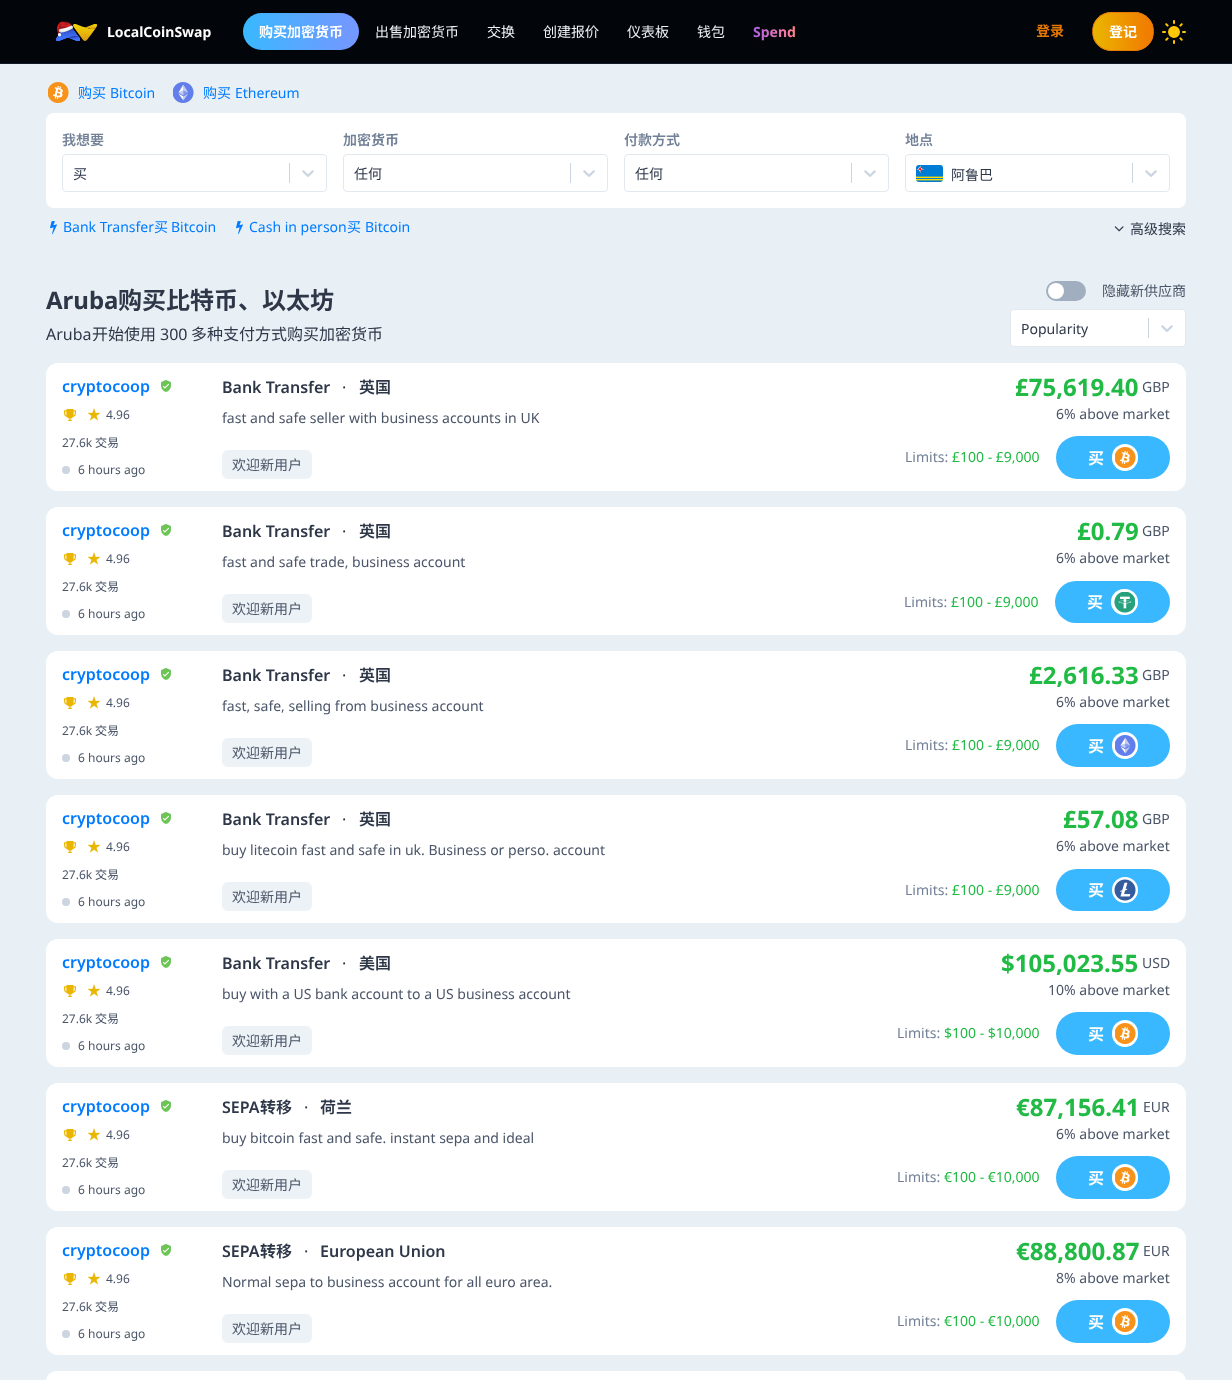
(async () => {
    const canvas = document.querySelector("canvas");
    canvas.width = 1232;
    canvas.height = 1380;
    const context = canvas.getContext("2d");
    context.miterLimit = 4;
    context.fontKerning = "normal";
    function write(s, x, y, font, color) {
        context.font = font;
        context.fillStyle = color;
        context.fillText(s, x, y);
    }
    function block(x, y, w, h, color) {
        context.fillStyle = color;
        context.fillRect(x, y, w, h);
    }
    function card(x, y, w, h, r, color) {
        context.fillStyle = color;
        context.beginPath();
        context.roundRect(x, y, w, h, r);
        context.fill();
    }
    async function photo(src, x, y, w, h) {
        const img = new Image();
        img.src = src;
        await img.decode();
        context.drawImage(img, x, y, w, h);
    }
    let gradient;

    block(0, 0, 1232, 1380, "rgb(233, 240, 245)");
    block(0, 0, 1232, 63, "rgb(2, 5, 10)");
    block(0, 63, 1232, 1, "rgb(15, 28, 44)");
    await photo("media/1.png", 55, 21, 43, 20);
    write("LocalCoinSwap", 107, 37, "bold 14px Noto Sans", "rgb(255, 255, 255)");
    gradient = context.createLinearGradient(243, 32, 359, 31);
    gradient.addColorStop(0, "rgb(57, 184, 255)");
    gradient.addColorStop(0.9, "rgb(113, 153, 255)");
    context.fillStyle = gradient;
    context.beginPath();
    context.roundRect(243, 13, 116, 37, 18.5);
    context.fill();
    write("购买", 259, 37, "bold 14px Noto Sans CJK JP", "rgb(255, 255, 255)");
    write("加密", 287, 37, "600 14px Noto Sans JP", "rgb(255, 255, 255)");
    write("货币", 315, 37, "bold 14px Noto Sans CJK JP", "rgb(255, 255, 255)");
    write("出售加密", 375, 37, "14px Noto Sans JP", "rgb(237, 242, 247)");
    write("货币", 431, 37, "14px Noto Sans CJK JP", "rgb(237, 242, 247)");
    write("交", 487, 37, "14px Noto Sans JP", "rgb(237, 242, 247)");
    write("换", 501, 37, "14px Noto Sans CJK JP", "rgb(237, 242, 247)");
    write("创", 543, 37, "14px Noto Sans CJK JP", "rgb(237, 242, 247)");
    write("建", 557, 37, "14px Noto Sans JP", "rgb(237, 242, 247)");
    write("报", 571, 37, "14px Noto Sans CJK JP", "rgb(237, 242, 247)");
    write("价", 585, 37, "14px Noto Sans JP", "rgb(237, 242, 247)");
    write("仪", 627, 37, "14px Noto Sans CJK JP", "rgb(237, 242, 247)");
    write("表板", 641, 37, "14px Noto Sans JP", "rgb(237, 242, 247)");
    write("钱", 697, 37, "14px Noto Sans CJK JP", "rgb(237, 242, 247)");
    write("包", 711, 37, "14px Noto Sans JP", "rgb(237, 242, 247)");
    context.font = "bold 14px Noto Sans";
    gradient = context.createLinearGradient(741, 32, 809, 31);
    gradient.addColorStop(0, "rgb(144, 93, 255)");
    gradient.addColorStop(0.7, "rgb(254, 121, 157)");
    gradient.addColorStop(1, "rgb(255, 165, 107)");
    context.fillStyle = gradient;
    context.fillText("Spend", 753, 37);
    write("登", 1036, 36, "bold 14px Noto Sans JP", "rgb(230, 121, 5)");
    write("录", 1050, 36, "bold 14px Noto Sans CJK JP", "rgb(230, 121, 5)");
    context.save();
    context.beginPath();
    context.roundRect(1092, 12, 62, 39, 19.5);
    context.clip();
    gradient = context.createLinearGradient(1093, 32, 1153, 31);
    gradient.addColorStop(0, "rgb(234, 182, 0)");
    gradient.addColorStop(0.9, "rgb(241, 126, 0)");
    context.fillStyle = gradient;
    context.fillRect(1093, 12, 60, 39);
    context.restore();
    context.beginPath();
    context.roundRect(1092.5, 12.5, 61, 38, 19);
    context.strokeStyle = "rgb(230, 121, 5)";
    context.stroke();
    write("登", 1109, 37, "bold 14px Noto Sans JP", "rgb(255, 255, 255)");
    write("记", 1123, 37, "bold 14px Noto Sans CJK JP", "rgb(255, 255, 255)");
    await photo("media/2.png", 1162, 20, 24, 24);
    await photo("media/3.png", 48, 82, 21, 21);
    write("购买", 78, 98, "14px Noto Sans CJK JP", "rgb(0, 123, 255)");
    write("Bitcoin", 110, 98, "14px Noto Sans", "rgb(0, 123, 255)");
    await photo("media/4.png", 173, 82, 21, 21);
    write("购买", 203, 98, "14px Noto Sans CJK JP", "rgb(0, 123, 255)");
    write("Ethereum", 235, 98, "14px Noto Sans", "rgb(0, 123, 255)");
    card(46, 113, 1140, 95, 8, "rgb(255, 255, 255)");
    write("我想要", 62, 145, "600 14px Noto Sans JP", "rgb(113, 128, 150)");
    context.beginPath();
    context.roundRect(62.5, 154.5, 264, 37, 3.5);
    context.strokeStyle = "rgb(226, 232, 240)";
    context.stroke();
    write("买", 73, 179, "14px Noto Sans CJK JP", "rgb(45, 55, 72)");
    block(289, 163, 1, 20, "rgb(203, 213, 224)");
    await photo("media/5.png", 302, 170, 12, 7);
    write("加密", 343, 145, "600 14px Noto Sans JP", "rgb(113, 128, 150)");
    write("货币", 371, 145, "bold 14px Noto Sans CJK JP", "rgb(113, 128, 150)");
    context.beginPath();
    context.roundRect(343.5, 154.5, 264, 37, 3.5);
    context.stroke();
    write("任何", 354, 179, "14px Noto Sans JP", "rgb(45, 55, 72)");
    block(570, 163, 1, 20, "rgb(203, 213, 224)");
    await photo("media/5.png", 583, 170, 12, 7);
    write("付款方式", 624, 145, "600 14px Noto Sans JP", "rgb(113, 128, 150)");
    context.beginPath();
    context.roundRect(624.5, 154.5, 264, 37, 3.5);
    context.stroke();
    write("任何", 635, 179, "14px Noto Sans JP", "rgb(45, 55, 72)");
    block(851, 163, 1, 20, "rgb(203, 213, 224)");
    await photo("media/5.png", 864, 170, 12, 7);
    write("地点", 905, 145, "600 14px Noto Sans JP", "rgb(113, 128, 150)");
    context.beginPath();
    context.roundRect(905.5, 154.5, 264, 37, 3.5);
    context.stroke();
    await photo("media/6.png", 916, 165, 27, 17);
    write("阿", 951, 180, "14px Noto Sans JP", "rgb(45, 55, 72)");
    write("鲁", 965, 180, "14px Noto Sans CJK JP", "rgb(45, 55, 72)");
    write("巴", 979, 180, "14px Noto Sans JP", "rgb(45, 55, 72)");
    block(1132, 163, 1, 20, "rgb(203, 213, 224)");
    await photo("media/5.png", 1145, 170, 12, 7);
    await photo("media/7.png", 50, 221, 7, 13);
    write("Bank Transfer", 63, 232, "14px Noto Sans", "rgb(0, 123, 255)");
    write("买", 154, 232, "14px Noto Sans CJK JP", "rgb(0, 123, 255)");
    write("Bitcoin", 171, 232, "14px Noto Sans", "rgb(0, 123, 255)");
    await photo("media/7.png", 236, 221, 7, 13);
    write("Cash in person", 249, 232, "14px Noto Sans", "rgb(0, 123, 255)");
    write("买", 347, 232, "14px Noto Sans CJK JP", "rgb(0, 123, 255)");
    write("Bitcoin", 365, 232, "14px Noto Sans", "rgb(0, 123, 255)");
    await photo("media/8.png", 1114, 226, 10, 6);
    write("高", 1130, 234, "14px Noto Sans JP", "rgb(45, 55, 72)");
    write("级", 1144, 234, "14px Noto Sans CJK JP", "rgb(45, 55, 72)");
    write("搜索", 1158, 234, "14px Noto Sans JP", "rgb(45, 55, 72)");
    write("Aruba", 46, 309, "bold 24px Noto Sans", "rgb(45, 55, 72)");
    write("购买", 118, 309, "bold 24px Noto Sans CJK JP", "rgb(45, 55, 72)");
    write("比特", 166, 309, "bold 24px Noto Sans JP", "rgb(45, 55, 72)");
    write("币", 214, 309, "bold 24px Noto Sans CJK JP", "rgb(45, 55, 72)");
    write("、以太坊", 238, 309, "bold 24px Noto Sans JP", "rgb(45, 55, 72)");
    write("Aruba", 46, 340, "16px Noto Sans", "rgb(45, 55, 72)");
    write("开始使用", 92, 340, "16px Noto Sans JP", "rgb(45, 55, 72)");
    write("300", 160, 340, "16px Noto Sans", "rgb(45, 55, 72)");
    write("多种支付方式", 191, 340, "16px Noto Sans JP", "rgb(45, 55, 72)");
    write("购买", 287, 340, "16px Noto Sans CJK JP", "rgb(45, 55, 72)");
    write("加密", 319, 340, "16px Noto Sans JP", "rgb(45, 55, 72)");
    write("货币", 351, 340, "16px Noto Sans CJK JP", "rgb(45, 55, 72)");
    card(1046, 281, 40, 20, 10, "rgb(160, 174, 192)");
    context.fillStyle = "rgb(255, 255, 255)";
    context.beginPath();
    context.arc(1056, 291, 8, 0, Math.PI * 2);
    context.fill();
    write("隐", 1102, 296, "14px Noto Sans CJK JP", "rgb(74, 85, 104)");
    write("藏新供", 1116, 296, "14px Noto Sans JP", "rgb(74, 85, 104)");
    write("应", 1158, 296, "14px Noto Sans CJK JP", "rgb(74, 85, 104)");
    write("商", 1172, 296, "14px Noto Sans JP", "rgb(74, 85, 104)");
    context.fillStyle = "rgb(255, 255, 255)";
    context.beginPath();
    context.roundRect(1010.5, 309.5, 175, 37, 3.5);
    context.fill();
    context.stroke();
    write("Popularity", 1021, 334, "14px Noto Sans", "rgb(45, 55, 72)");
    block(1148, 318, 1, 20, "rgb(203, 213, 224)");
    await photo("media/5.png", 1161, 325, 12, 7);
    card(46, 363, 1140, 128, 12, "rgb(255, 255, 255)");
    write("cryptocoop", 62, 392, "600 16px Noto Sans", "rgb(0, 123, 255)");
    await photo("media/9.png", 161, 380, 10, 12);
    await photo("media/10.png", 64, 409, 12, 12);
    await photo("media/11.png", 87, 408, 14, 13);
    write("4.96", 106, 419, "12px Noto Sans", "rgb(74, 85, 104)");
    write("27.6k", 62, 447, "12px Noto Sans", "rgb(74, 85, 104)");
    write("交易", 95, 447, "12px Noto Sans JP", "rgb(74, 85, 104)");
    context.fillStyle = "rgb(203, 213, 224)";
    context.beginPath();
    context.arc(66, 470, 4, 0, Math.PI * 2);
    context.fill();
    write("6 hours ago", 78, 474, "12px Noto Sans", "rgb(74, 85, 104)");
    write("Bank Transfer", 222, 393, "600 16px Noto Sans", "rgb(45, 55, 72)");
    write("·", 342, 393, "16px Noto Sans", "rgb(45, 55, 72)");
    write("英国", 359, 393, "600 16px Noto Sans JP", "rgb(45, 55, 72)");
    write("fast and safe seller with business accounts in UK", 222, 423, "14px Noto Sans", "rgb(74, 85, 104)");
    card(222, 450, 90, 29, 6, "rgb(237, 242, 247)");
    write("欢", 232, 470, "14px Noto Sans CJK JP", "rgb(74, 85, 104)");
    write("迎新用", 246, 470, "14px Noto Sans JP", "rgb(74, 85, 104)");
    write("户", 288, 470, "14px Noto Sans CJK JP", "rgb(74, 85, 104)");
    write("£75,619.40", 1015, 396, "bold 24px Noto Sans", "rgb(33, 186, 69)");
    write("GBP", 1142, 392, "14px Noto Sans", "rgb(74, 85, 104)");
    write("6% above market", 1056, 419, "14px Noto Sans", "rgb(74, 85, 104)");
    write("Limits:", 905, 462, "14px Noto Sans", "rgb(113, 128, 150)");
    write("£100 - £9,000", 952, 462, "14px Noto Sans", "rgb(33, 186, 69)");
    card(1056, 436, 114, 43, 21.5, "rgb(57, 184, 255)");
    write("买", 1088, 464, "bold 16px Noto Sans CJK JP", "rgb(255, 255, 255)");
    card(1112, 444, 26, 27, 13, "rgb(255, 255, 255)");
    await photo("media/12.png", 1115, 447, 21, 21);
    card(46, 507, 1140, 128, 12, "rgb(255, 255, 255)");
    write("cryptocoop", 62, 536, "600 16px Noto Sans", "rgb(0, 123, 255)");
    await photo("media/9.png", 161, 524, 10, 12);
    await photo("media/10.png", 64, 553, 12, 12);
    await photo("media/11.png", 87, 552, 14, 13);
    write("4.96", 106, 563, "12px Noto Sans", "rgb(74, 85, 104)");
    write("27.6k", 62, 591, "12px Noto Sans", "rgb(74, 85, 104)");
    write("交易", 95, 591, "12px Noto Sans JP", "rgb(74, 85, 104)");
    context.fillStyle = "rgb(203, 213, 224)";
    context.beginPath();
    context.arc(66, 614, 4, 0, Math.PI * 2);
    context.fill();
    write("6 hours ago", 78, 618, "12px Noto Sans", "rgb(74, 85, 104)");
    write("Bank Transfer", 222, 537, "600 16px Noto Sans", "rgb(45, 55, 72)");
    write("·", 342, 537, "16px Noto Sans", "rgb(45, 55, 72)");
    write("英国", 359, 537, "600 16px Noto Sans JP", "rgb(45, 55, 72)");
    write("fast and safe trade, business account", 222, 567, "14px Noto Sans", "rgb(74, 85, 104)");
    card(222, 594, 90, 29, 6, "rgb(237, 242, 247)");
    write("欢", 232, 614, "14px Noto Sans CJK JP", "rgb(74, 85, 104)");
    write("迎新用", 246, 614, "14px Noto Sans JP", "rgb(74, 85, 104)");
    write("户", 288, 614, "14px Noto Sans CJK JP", "rgb(74, 85, 104)");
    write("£0.79", 1077, 540, "bold 24px Noto Sans", "rgb(33, 186, 69)");
    write("GBP", 1142, 536, "14px Noto Sans", "rgb(74, 85, 104)");
    write("6% above market", 1056, 563, "14px Noto Sans", "rgb(74, 85, 104)");
    write("Limits:", 904, 607, "14px Noto Sans", "rgb(113, 128, 150)");
    write("£100 - £9,000", 951, 607, "14px Noto Sans", "rgb(33, 186, 69)");
    card(1055, 581, 115, 42, 21, "rgb(57, 184, 255)");
    write("买", 1087, 608, "bold 16px Noto Sans CJK JP", "rgb(255, 255, 255)");
    card(1111, 589, 27, 26, 13, "rgb(255, 255, 255)");
    await photo("media/13.png", 1114, 592, 21, 21);
    card(46, 651, 1140, 128, 12, "rgb(255, 255, 255)");
    write("cryptocoop", 62, 680, "600 16px Noto Sans", "rgb(0, 123, 255)");
    await photo("media/9.png", 161, 668, 10, 12);
    await photo("media/10.png", 64, 697, 12, 12);
    await photo("media/11.png", 87, 696, 14, 13);
    write("4.96", 106, 707, "12px Noto Sans", "rgb(74, 85, 104)");
    write("27.6k", 62, 735, "12px Noto Sans", "rgb(74, 85, 104)");
    write("交易", 95, 735, "12px Noto Sans JP", "rgb(74, 85, 104)");
    context.fillStyle = "rgb(203, 213, 224)";
    context.beginPath();
    context.arc(66, 758, 4, 0, Math.PI * 2);
    context.fill();
    write("6 hours ago", 78, 762, "12px Noto Sans", "rgb(74, 85, 104)");
    write("Bank Transfer", 222, 681, "600 16px Noto Sans", "rgb(45, 55, 72)");
    write("·", 342, 681, "16px Noto Sans", "rgb(45, 55, 72)");
    write("英国", 359, 681, "600 16px Noto Sans JP", "rgb(45, 55, 72)");
    write("fast, safe, selling from business account", 222, 711, "14px Noto Sans", "rgb(74, 85, 104)");
    card(222, 738, 90, 29, 6, "rgb(237, 242, 247)");
    write("欢", 232, 758, "14px Noto Sans CJK JP", "rgb(74, 85, 104)");
    write("迎新用", 246, 758, "14px Noto Sans JP", "rgb(74, 85, 104)");
    write("户", 288, 758, "14px Noto Sans CJK JP", "rgb(74, 85, 104)");
    write("£2,616.33", 1029, 684, "bold 24px Noto Sans", "rgb(33, 186, 69)");
    write("GBP", 1142, 680, "14px Noto Sans", "rgb(74, 85, 104)");
    write("6% above market", 1056, 707, "14px Noto Sans", "rgb(74, 85, 104)");
    write("Limits:", 905, 750, "14px Noto Sans", "rgb(113, 128, 150)");
    write("£100 - £9,000", 952, 750, "14px Noto Sans", "rgb(33, 186, 69)");
    card(1056, 724, 114, 43, 21.5, "rgb(57, 184, 255)");
    write("买", 1088, 752, "bold 16px Noto Sans CJK JP", "rgb(255, 255, 255)");
    card(1112, 732, 26, 27, 13, "rgb(255, 255, 255)");
    await photo("media/14.png", 1115, 735, 21, 21);
    card(46, 795, 1140, 128, 12, "rgb(255, 255, 255)");
    write("cryptocoop", 62, 824, "600 16px Noto Sans", "rgb(0, 123, 255)");
    await photo("media/9.png", 161, 812, 10, 12);
    await photo("media/10.png", 64, 841, 12, 12);
    await photo("media/11.png", 87, 840, 14, 13);
    write("4.96", 106, 851, "12px Noto Sans", "rgb(74, 85, 104)");
    write("27.6k", 62, 879, "12px Noto Sans", "rgb(74, 85, 104)");
    write("交易", 95, 879, "12px Noto Sans JP", "rgb(74, 85, 104)");
    context.fillStyle = "rgb(203, 213, 224)";
    context.beginPath();
    context.arc(66, 902, 4, 0, Math.PI * 2);
    context.fill();
    write("6 hours ago", 78, 906, "12px Noto Sans", "rgb(74, 85, 104)");
    write("Bank Transfer", 222, 825, "600 16px Noto Sans", "rgb(45, 55, 72)");
    write("·", 342, 825, "16px Noto Sans", "rgb(45, 55, 72)");
    write("英国", 359, 825, "600 16px Noto Sans JP", "rgb(45, 55, 72)");
    write("buy litecoin fast and safe in uk. Business or perso. account", 222, 855, "14px Noto Sans", "rgb(74, 85, 104)");
    card(222, 882, 90, 29, 6, "rgb(237, 242, 247)");
    write("欢", 232, 902, "14px Noto Sans CJK JP", "rgb(74, 85, 104)");
    write("迎新用", 246, 902, "14px Noto Sans JP", "rgb(74, 85, 104)");
    write("户", 288, 902, "14px Noto Sans CJK JP", "rgb(74, 85, 104)");
    write("£57.08", 1063, 828, "bold 24px Noto Sans", "rgb(33, 186, 69)");
    write("GBP", 1142, 824, "14px Noto Sans", "rgb(74, 85, 104)");
    write("6% above market", 1056, 851, "14px Noto Sans", "rgb(74, 85, 104)");
    write("Limits:", 905, 895, "14px Noto Sans", "rgb(113, 128, 150)");
    write("£100 - £9,000", 952, 895, "14px Noto Sans", "rgb(33, 186, 69)");
    card(1056, 869, 114, 42, 21, "rgb(57, 184, 255)");
    write("买", 1088, 896, "bold 16px Noto Sans CJK JP", "rgb(255, 255, 255)");
    context.beginPath();
    context.arc(1125, 890, 13, 0, Math.PI * 2);
    context.fill();
    await photo("media/15.png", 1114, 879, 22, 22);
    card(46, 939, 1140, 128, 12, "rgb(255, 255, 255)");
    write("cryptocoop", 62, 968, "600 16px Noto Sans", "rgb(0, 123, 255)");
    await photo("media/9.png", 161, 956, 10, 12);
    await photo("media/10.png", 64, 985, 12, 12);
    await photo("media/11.png", 87, 984, 14, 13);
    write("4.96", 106, 995, "12px Noto Sans", "rgb(74, 85, 104)");
    write("27.6k", 62, 1023, "12px Noto Sans", "rgb(74, 85, 104)");
    write("交易", 95, 1023, "12px Noto Sans JP", "rgb(74, 85, 104)");
    context.fillStyle = "rgb(203, 213, 224)";
    context.beginPath();
    context.arc(66, 1046, 4, 0, Math.PI * 2);
    context.fill();
    write("6 hours ago", 78, 1050, "12px Noto Sans", "rgb(74, 85, 104)");
    write("Bank Transfer", 222, 969, "600 16px Noto Sans", "rgb(45, 55, 72)");
    write("·", 342, 969, "16px Noto Sans", "rgb(45, 55, 72)");
    write("美国", 359, 969, "600 16px Noto Sans JP", "rgb(45, 55, 72)");
    write("buy with a US bank account to a US business account", 222, 999, "14px Noto Sans", "rgb(74, 85, 104)");
    card(222, 1026, 90, 29, 6, "rgb(237, 242, 247)");
    write("欢", 232, 1046, "14px Noto Sans CJK JP", "rgb(74, 85, 104)");
    write("迎新用", 246, 1046, "14px Noto Sans JP", "rgb(74, 85, 104)");
    write("户", 288, 1046, "14px Noto Sans CJK JP", "rgb(74, 85, 104)");
    write("$105,023.55", 1001, 972, "bold 24px Noto Sans", "rgb(33, 186, 69)");
    write("USD", 1142, 968, "14px Noto Sans", "rgb(74, 85, 104)");
    write("10% above market", 1048, 995, "14px Noto Sans", "rgb(74, 85, 104)");
    write("Limits:", 897, 1038, "14px Noto Sans", "rgb(113, 128, 150)");
    write("$100 - $10,000", 944, 1038, "14px Noto Sans", "rgb(33, 186, 69)");
    card(1056, 1012, 114, 43, 21.5, "rgb(57, 184, 255)");
    write("买", 1088, 1040, "bold 16px Noto Sans CJK JP", "rgb(255, 255, 255)");
    card(1112, 1020, 26, 27, 13, "rgb(255, 255, 255)");
    await photo("media/12.png", 1115, 1023, 21, 21);
    card(46, 1083, 1140, 128, 12, "rgb(255, 255, 255)");
    write("cryptocoop", 62, 1112, "600 16px Noto Sans", "rgb(0, 123, 255)");
    await photo("media/9.png", 161, 1100, 10, 12);
    await photo("media/10.png", 64, 1129, 12, 12);
    await photo("media/11.png", 87, 1128, 14, 13);
    write("4.96", 106, 1139, "12px Noto Sans", "rgb(74, 85, 104)");
    write("27.6k", 62, 1167, "12px Noto Sans", "rgb(74, 85, 104)");
    write("交易", 95, 1167, "12px Noto Sans JP", "rgb(74, 85, 104)");
    context.fillStyle = "rgb(203, 213, 224)";
    context.beginPath();
    context.arc(66, 1190, 4, 0, Math.PI * 2);
    context.fill();
    write("6 hours ago", 78, 1194, "12px Noto Sans", "rgb(74, 85, 104)");
    write("SEPA", 222, 1113, "600 16px Noto Sans", "rgb(45, 55, 72)");
    write("转", 260, 1113, "bold 16px Noto Sans CJK JP", "rgb(45, 55, 72)");
    write("移", 276, 1113, "600 16px Noto Sans JP", "rgb(45, 55, 72)");
    write("·", 304, 1113, "16px Noto Sans", "rgb(45, 55, 72)");
    write("荷", 320, 1113, "600 16px Noto Sans JP", "rgb(45, 55, 72)");
    write("兰", 336, 1113, "bold 16px Noto Sans CJK JP", "rgb(45, 55, 72)");
    write("buy bitcoin fast and safe. instant sepa and ideal", 222, 1143, "14px Noto Sans", "rgb(74, 85, 104)");
    card(222, 1170, 90, 29, 6, "rgb(237, 242, 247)");
    write("欢", 232, 1190, "14px Noto Sans CJK JP", "rgb(74, 85, 104)");
    write("迎新用", 246, 1190, "14px Noto Sans JP", "rgb(74, 85, 104)");
    write("户", 288, 1190, "14px Noto Sans CJK JP", "rgb(74, 85, 104)");
    write("€87,156.41", 1016, 1116, "bold 24px Noto Sans", "rgb(33, 186, 69)");
    write("EUR", 1143, 1112, "14px Noto Sans", "rgb(74, 85, 104)");
    write("6% above market", 1056, 1139, "14px Noto Sans", "rgb(74, 85, 104)");
    write("Limits:", 897, 1182, "14px Noto Sans", "rgb(113, 128, 150)");
    write("€100 - €10,000", 944, 1182, "14px Noto Sans", "rgb(33, 186, 69)");
    card(1056, 1156, 114, 43, 21.5, "rgb(57, 184, 255)");
    write("买", 1088, 1184, "bold 16px Noto Sans CJK JP", "rgb(255, 255, 255)");
    card(1112, 1164, 26, 27, 13, "rgb(255, 255, 255)");
    await photo("media/12.png", 1115, 1167, 21, 21);
    card(46, 1227, 1140, 128, 12, "rgb(255, 255, 255)");
    write("cryptocoop", 62, 1256, "600 16px Noto Sans", "rgb(0, 123, 255)");
    await photo("media/9.png", 161, 1244, 10, 12);
    await photo("media/10.png", 64, 1273, 12, 12);
    await photo("media/11.png", 87, 1272, 14, 13);
    write("4.96", 106, 1283, "12px Noto Sans", "rgb(74, 85, 104)");
    write("27.6k", 62, 1311, "12px Noto Sans", "rgb(74, 85, 104)");
    write("交易", 95, 1311, "12px Noto Sans JP", "rgb(74, 85, 104)");
    context.fillStyle = "rgb(203, 213, 224)";
    context.beginPath();
    context.arc(66, 1334, 4, 0, Math.PI * 2);
    context.fill();
    write("6 hours ago", 78, 1338, "12px Noto Sans", "rgb(74, 85, 104)");
    write("SEPA", 222, 1257, "600 16px Noto Sans", "rgb(45, 55, 72)");
    write("转", 260, 1257, "bold 16px Noto Sans CJK JP", "rgb(45, 55, 72)");
    write("移", 276, 1257, "600 16px Noto Sans JP", "rgb(45, 55, 72)");
    write("·", 304, 1257, "16px Noto Sans", "rgb(45, 55, 72)");
    write("European Union", 320, 1257, "600 16px Noto Sans", "rgb(45, 55, 72)");
    write("Normal sepa to business account for all euro area.", 222, 1287, "14px Noto Sans", "rgb(74, 85, 104)");
    card(222, 1314, 90, 29, 6, "rgb(237, 242, 247)");
    write("欢", 232, 1334, "14px Noto Sans CJK JP", "rgb(74, 85, 104)");
    write("迎新用", 246, 1334, "14px Noto Sans JP", "rgb(74, 85, 104)");
    write("户", 288, 1334, "14px Noto Sans CJK JP", "rgb(74, 85, 104)");
    write("€88,800.87", 1016, 1260, "bold 24px Noto Sans", "rgb(33, 186, 69)");
    write("EUR", 1143, 1256, "14px Noto Sans", "rgb(74, 85, 104)");
    write("8% above market", 1056, 1283, "14px Noto Sans", "rgb(74, 85, 104)");
    write("Limits:", 897, 1326, "14px Noto Sans", "rgb(113, 128, 150)");
    write("€100 - €10,000", 944, 1326, "14px Noto Sans", "rgb(33, 186, 69)");
    card(1056, 1300, 114, 43, 21.5, "rgb(57, 184, 255)");
    write("买", 1088, 1328, "bold 16px Noto Sans CJK JP", "rgb(255, 255, 255)");
    card(1112, 1308, 26, 27, 13, "rgb(255, 255, 255)");
    await photo("media/12.png", 1115, 1311, 21, 21);
    card(46, 1371, 1140, 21, 12, "rgb(255, 255, 255)");
})();
